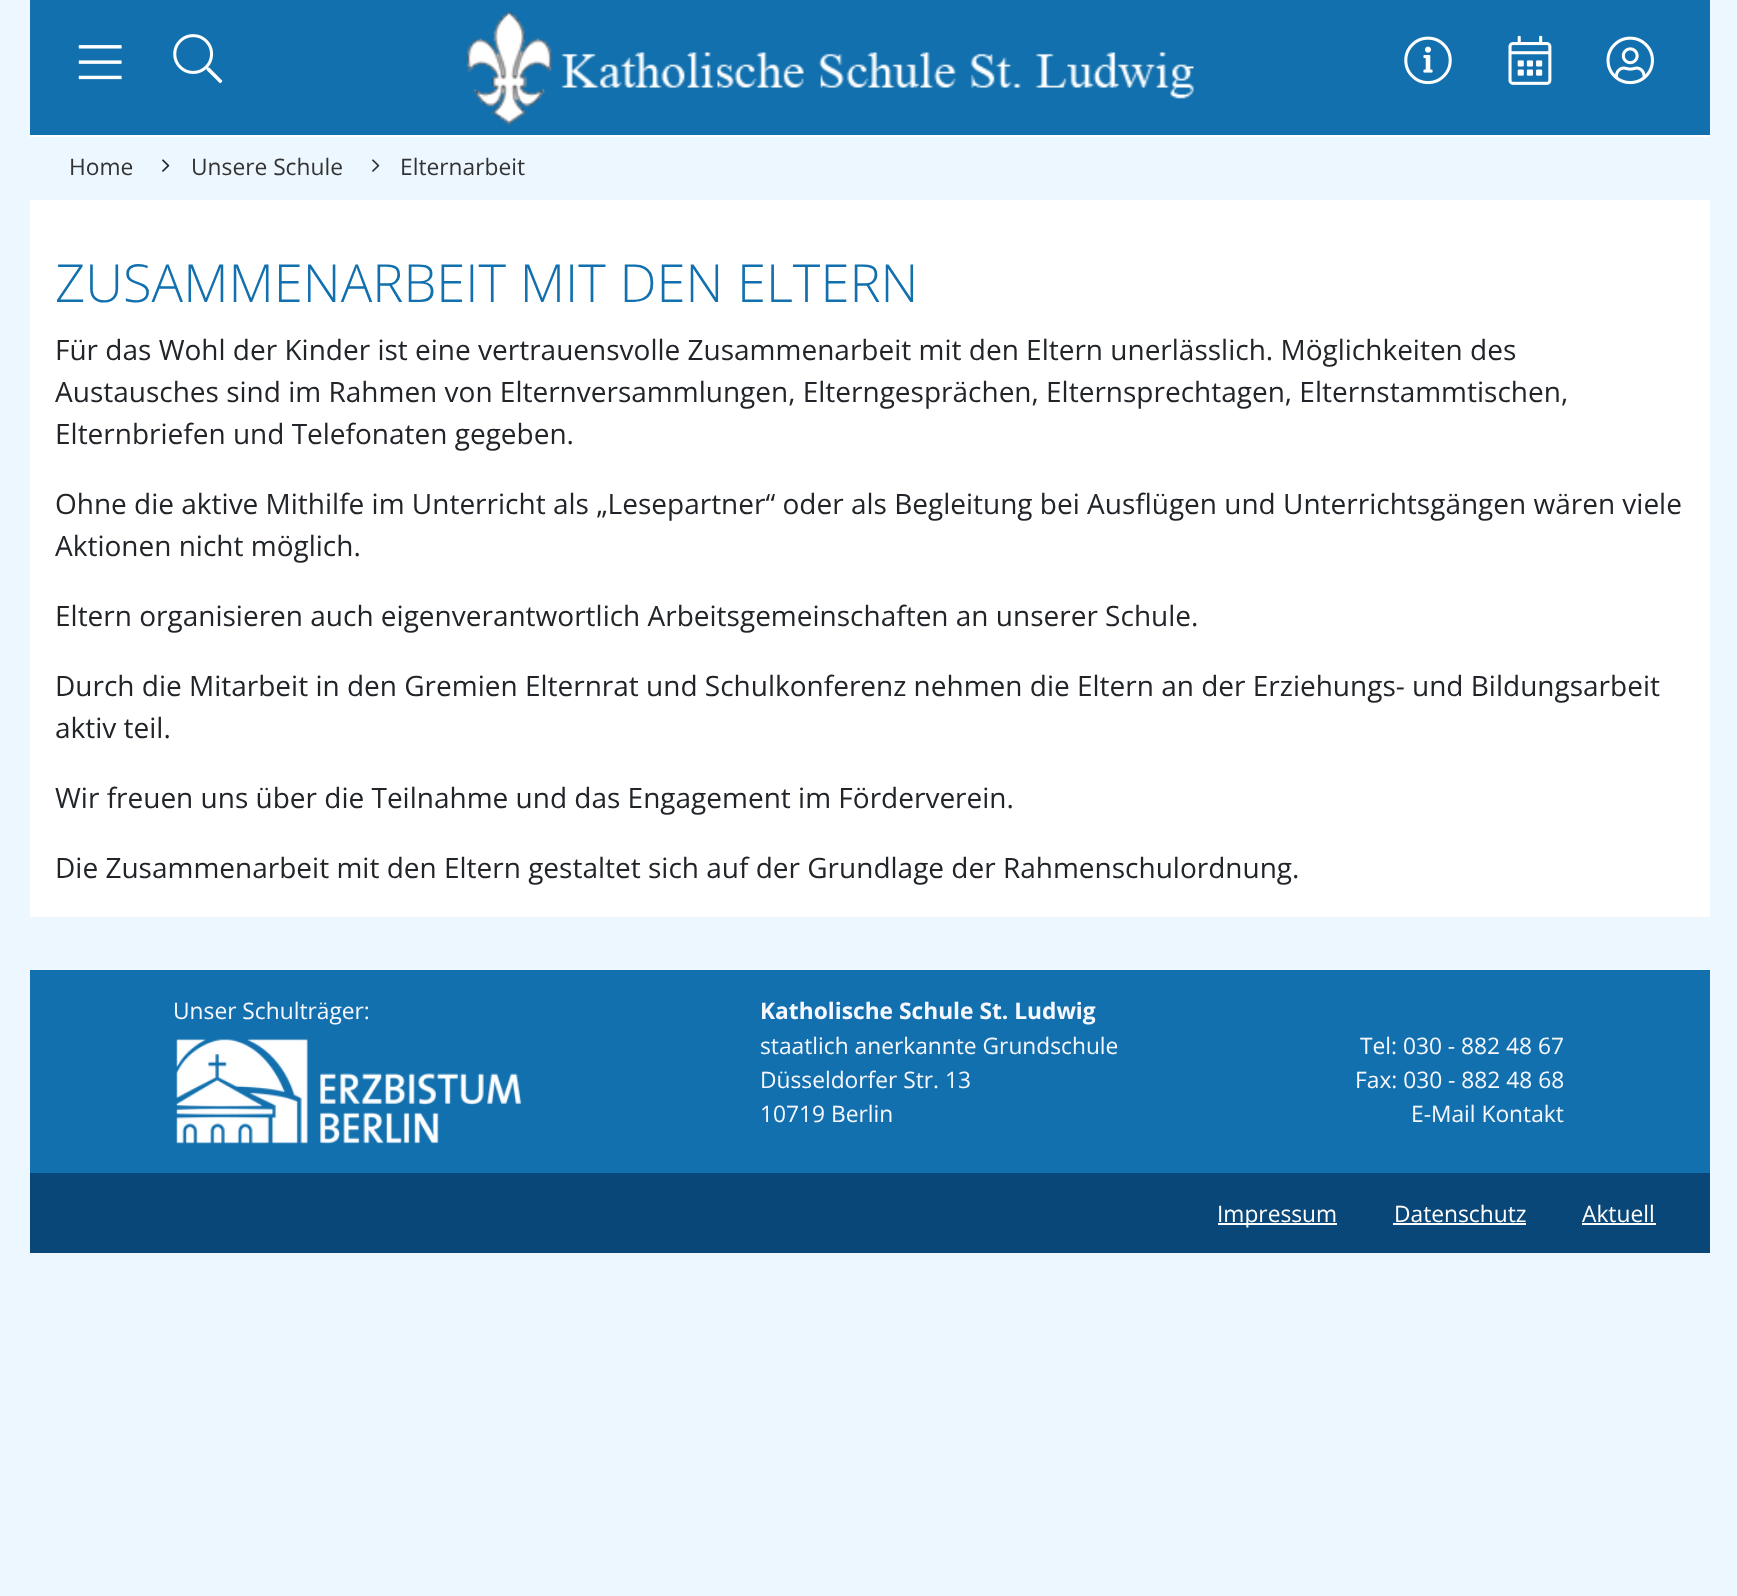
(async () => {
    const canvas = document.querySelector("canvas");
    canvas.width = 1737;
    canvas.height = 1596;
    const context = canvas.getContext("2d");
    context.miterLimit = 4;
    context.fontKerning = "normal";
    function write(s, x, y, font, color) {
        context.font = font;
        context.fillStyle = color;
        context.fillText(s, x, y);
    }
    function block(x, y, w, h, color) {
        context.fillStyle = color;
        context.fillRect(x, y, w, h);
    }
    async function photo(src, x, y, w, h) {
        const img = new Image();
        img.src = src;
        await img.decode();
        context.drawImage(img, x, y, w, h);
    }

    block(0, 0, 1737, 1596, "rgb(237, 247, 255)");
    block(30, 0, 1680, 135, "rgb(18, 112, 174)");
    block(30, 135, 1680, 2, "rgb(255, 255, 255)");
    await photo("media/1.png", 78, 45, 44, 35);
    await photo("media/2.png", 173, 34, 50, 50);
    await photo("media/3.png", 466, 11, 728, 114);
    await photo("media/4.png", 1404, 36, 48, 49);
    await photo("media/5.png", 1508, 35, 44, 50);
    await photo("media/6.png", 1606, 36, 48, 49);
    write("Home", 69, 175, "22.75px Open Sans", "rgb(51, 51, 51)");
    await photo("media/7.png", 162, 159, 8, 13);
    write("Unsere Schule", 191, 175, "22.75px Open Sans", "rgb(51, 51, 51)");
    await photo("media/8.png", 372, 159, 8, 13);
    write("Elternarbeit", 400, 175, "22.75px Open Sans", "rgb(51, 51, 51)");
    block(30, 200, 1680, 717, "rgb(255, 255, 255)");
    write("ZUSAMMENARBEIT MIT DEN ELTERN", 55, 302, "300 52.5px Open Sans", "rgb(18, 112, 174)");
    write("Für das Wohl der Kinder ist eine vertrauensvolle Zusammenarbeit mit den Eltern unerlässlich. Möglichkeiten des", 55, 360, "28px Open Sans", "rgb(33, 37, 41)");
    write("Austausches sind im Rahmen von Elternversammlungen, Elterngesprächen, Elternsprechtagen, Elternstammtischen,", 55, 402, "28px Open Sans", "rgb(33, 37, 41)");
    write("Elternbriefen und Telefonaten gegeben.", 55, 444, "28px Open Sans", "rgb(33, 37, 41)");
    write("Ohne die aktive Mithilfe im Unterricht als „Lesepartner“ oder als Begleitung bei Ausflügen und Unterrichtsgängen wären viele", 55, 514, "28px Open Sans", "rgb(33, 37, 41)");
    write("Aktionen nicht möglich.", 55, 556, "28px Open Sans", "rgb(33, 37, 41)");
    write("Eltern organisieren auch eigenverantwortlich Arbeitsgemeinschaften an unserer Schule.", 55, 626, "28px Open Sans", "rgb(33, 37, 41)");
    write("Durch die Mitarbeit in den Gremien Elternrat und Schulkonferenz nehmen die Eltern an der Erziehungs- und Bildungsarbeit", 55, 696, "28px Open Sans", "rgb(33, 37, 41)");
    write("aktiv teil.", 55, 738, "28px Open Sans", "rgb(33, 37, 41)");
    write("Wir freuen uns über die Teilnahme und das Engagement im Förderverein.", 55, 808, "28px Open Sans", "rgb(33, 37, 41)");
    write("Die Zusammenarbeit mit den Eltern gestaltet sich auf der Grundlage der Rahmenschulordnung.", 55, 878, "28px Open Sans", "rgb(33, 37, 41)");
    block(30, 970, 1680, 203, "rgb(18, 112, 174)");
    write("Unser Schulträger:", 173, 1019, "22.75px Open Sans", "rgb(246, 247, 255)");
    await photo("media/9.png", 176, 1038, 346, 106);
    write("Katholische Schule St. Ludwig", 760, 1019, "bold 22.75px Open Sans", "rgb(246, 247, 255)");
    write("staatlich anerkannte Grundschule", 760, 1054, "22.75px Open Sans", "rgb(246, 247, 255)");
    write("Düsseldorfer Str. 13", 760, 1088, "22.75px Open Sans", "rgb(246, 247, 255)");
    write("10719 Berlin", 760, 1122, "22.75px Open Sans", "rgb(246, 247, 255)");
    write("Tel: 030 - 882 48 67", 1360, 1054, "22.75px Open Sans", "rgb(246, 247, 255)");
    write("Fax: 030 - 882 48 68", 1355, 1088, "22.75px Open Sans", "rgb(246, 247, 255)");
    write("E-Mail Kontakt", 1411, 1122, "22.75px Open Sans", "rgb(246, 247, 255)");
    block(30, 1173, 1680, 80, "rgb(9, 71, 121)");
    block(1218, 1223, 119, 2, "rgb(255, 255, 255)");
    write("Impressum", 1217, 1222, "22.75px Open Sans", "rgb(255, 255, 255)");
    write("Datenschutz", 1394, 1222, "22.75px Open Sans", "rgb(255, 255, 255)");
    block(1393, 1223, 133, 2, "rgb(255, 255, 255)");
    write("Aktuell", 1582, 1222, "22.75px Open Sans", "rgb(255, 255, 255)");
    block(1582, 1223, 74, 2, "rgb(255, 255, 255)");
})();
